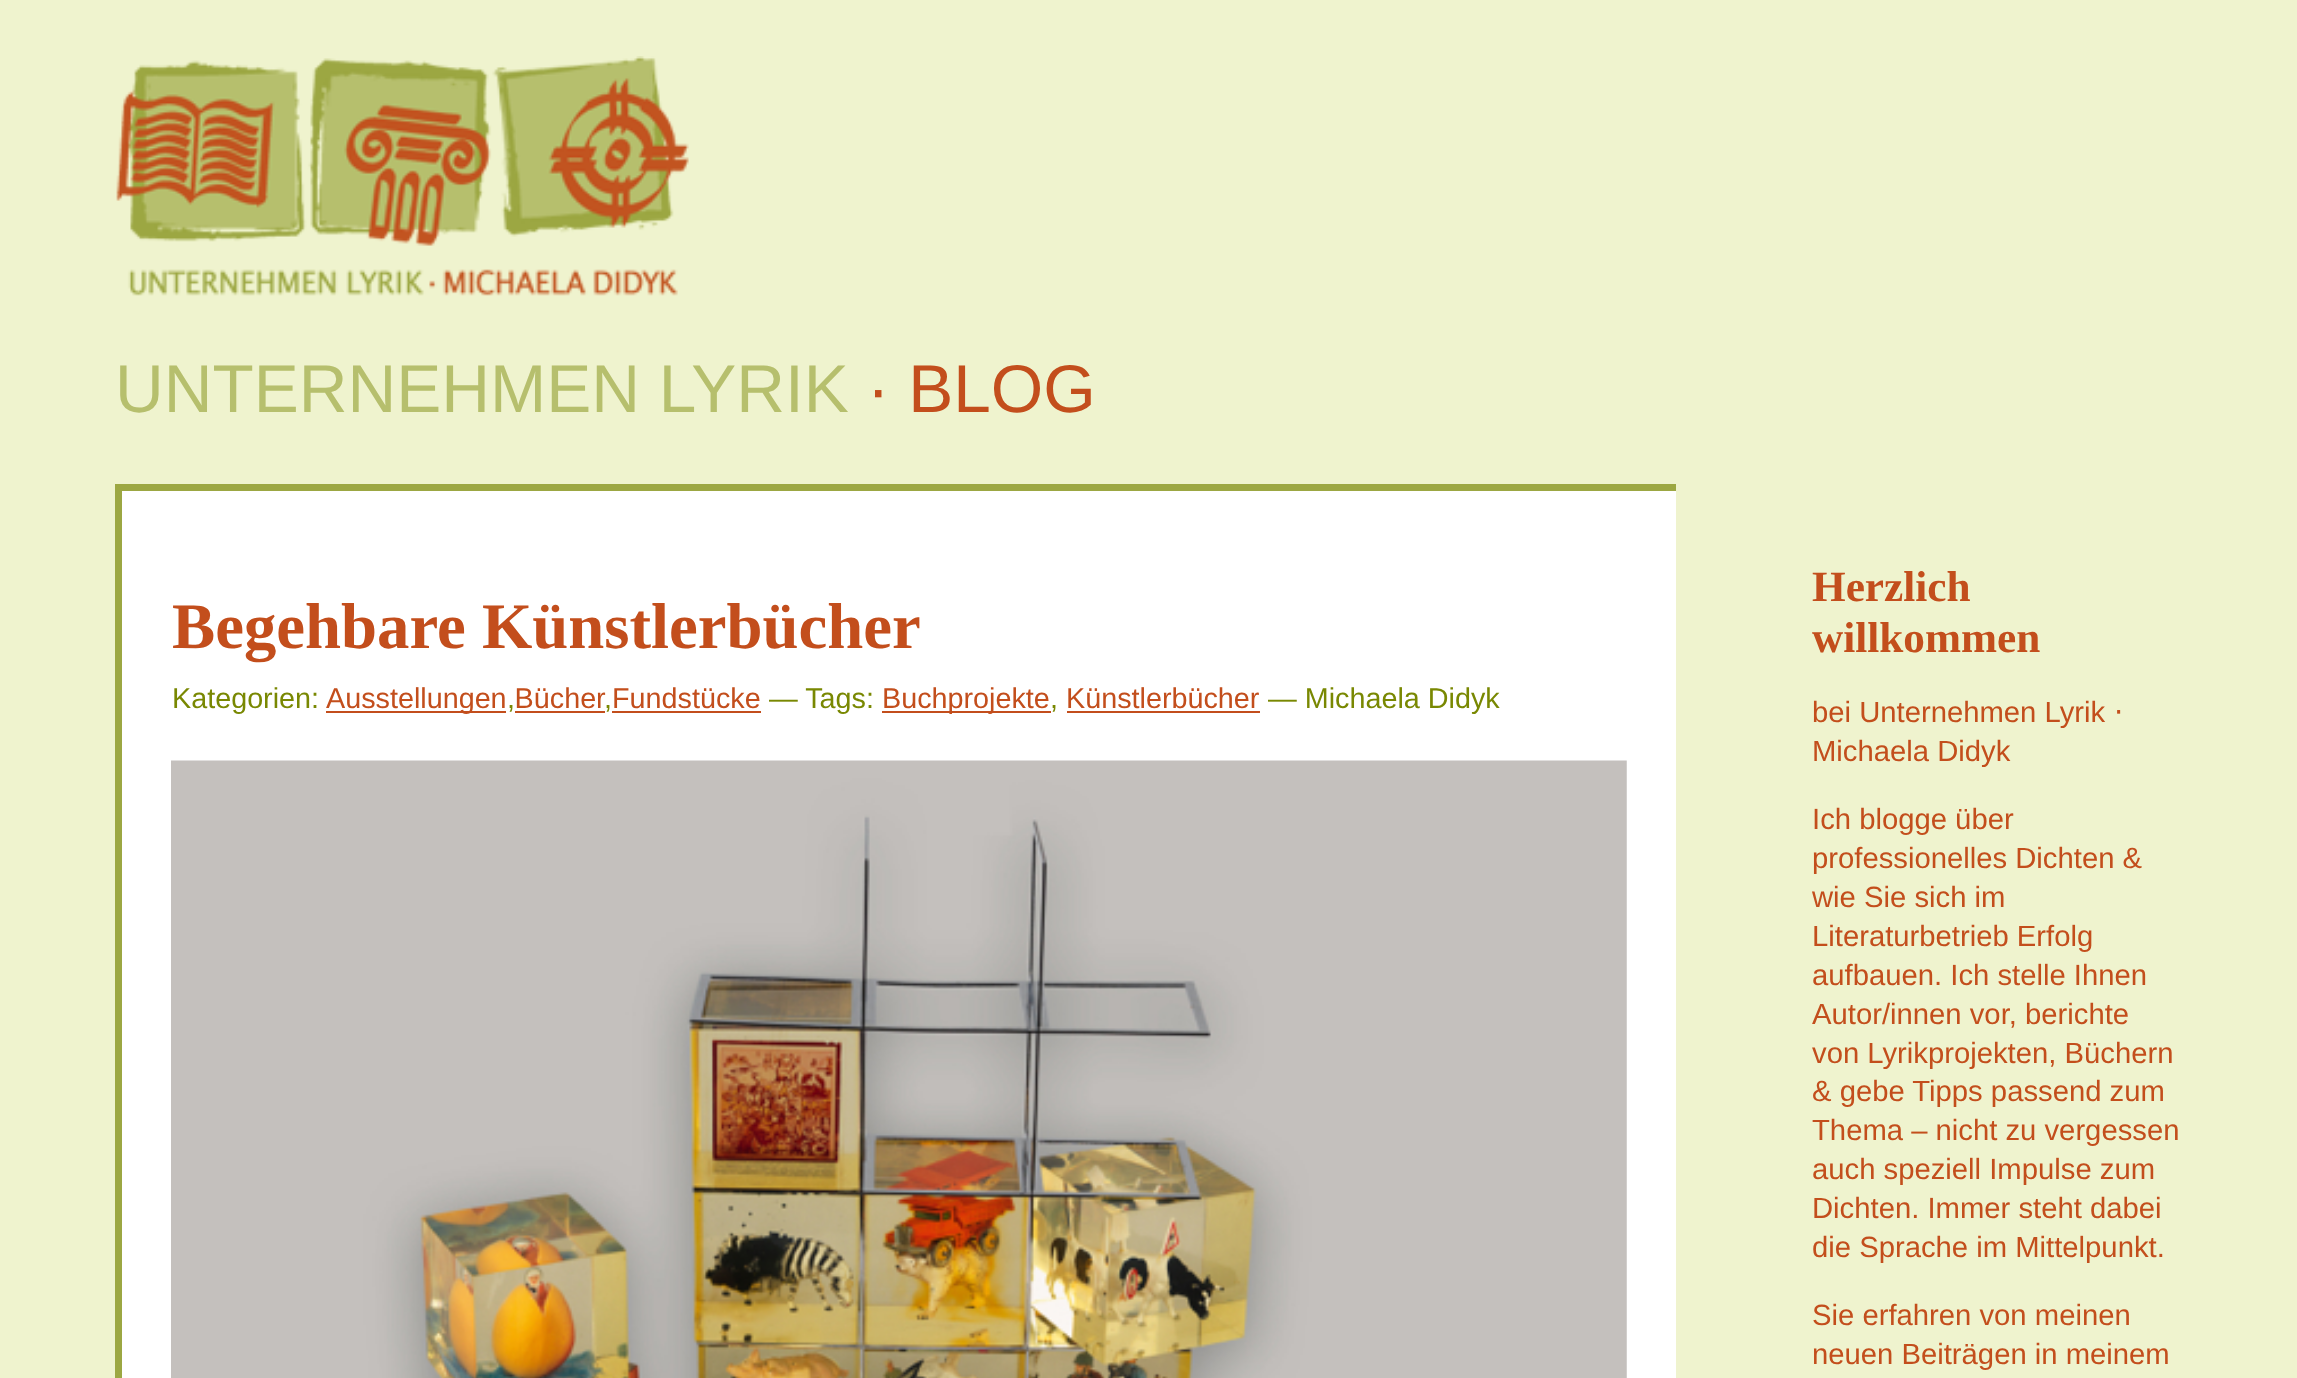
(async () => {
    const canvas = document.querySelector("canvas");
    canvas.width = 2297;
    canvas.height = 1378;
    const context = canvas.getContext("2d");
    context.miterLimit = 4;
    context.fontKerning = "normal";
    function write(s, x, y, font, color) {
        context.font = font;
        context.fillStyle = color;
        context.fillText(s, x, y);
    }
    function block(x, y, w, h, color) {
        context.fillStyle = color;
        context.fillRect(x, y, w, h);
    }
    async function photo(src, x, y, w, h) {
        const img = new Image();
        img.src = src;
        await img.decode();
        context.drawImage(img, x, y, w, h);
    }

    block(0, 0, 2297, 1378, "rgb(239, 243, 206)");
    await photo("media/1.png", 116, 56, 573, 240);
    write("UNTERNEHMEN LYRIK", 115, 412, "67.5px Liberation Sans", "rgb(182, 191, 109)");
    write("· BLOG", 867, 412, "67.5px Liberation Sans", "rgb(195, 78, 28)");
    block(122, 491, 1554, 887, "rgb(255, 255, 255)");
    block(115, 484, 1561, 7, "rgb(156, 167, 66)");
    block(115, 484, 7, 894, "rgb(156, 167, 66)");
    write("Begehbare Künstlerbücher", 172, 648, "bold 64.75px Liberation Serif", "rgb(195, 78, 28)");
    write("Kategorien:", 172, 708, "28.75px Liberation Sans", "rgb(121, 136, 2)");
    block(326, 711, 180, 2, "rgb(195, 78, 28)");
    write("Ausstellungen Bücher", 326, 708, "28.75px Liberation Sans", "rgb(195, 78, 28)");
    write("Fundstücke", 612, 708, "28.75px Liberation Sans", "rgb(195, 78, 28)");
    block(612, 711, 149, 2, "rgb(195, 78, 28)");
    write("— Tags:", 769, 708, "28.75px Liberation Sans", "rgb(121, 136, 2)");
    block(882, 711, 169, 2, "rgb(195, 78, 28)");
    write("Buchprojekte", 882, 708, "28.75px Liberation Sans", "rgb(195, 78, 28)");
    write("Künstlerbücher", 1066, 708, "28.75px Liberation Sans", "rgb(195, 78, 28)");
    block(1067, 711, 193, 2, "rgb(195, 78, 28)");
    write("— Michaela Didyk", 1268, 708, "28.75px Liberation Sans", "rgb(121, 136, 2)");
    write(",", 507, 708, "28.75px Liberation Sans", "rgb(121, 136, 2)");
    block(515, 711, 90, 2, "rgb(195, 78, 28)");
    write(",", 604, 708, "28.75px Liberation Sans", "rgb(121, 136, 2)");
    write(",", 1050, 708, "28.75px Liberation Sans", "rgb(121, 136, 2)");
    await photo("media/2.png", 171, 760, 1456, 618);
    write("Herzlich", 1812, 601, "bold 43.25px Liberation Serif", "rgb(195, 78, 28)");
    write("willkommen", 1812, 652, "bold 43.25px Liberation Serif", "rgb(195, 78, 28)");
    write("bei Unternehmen Lyrik", 1812, 722, "29.25px Liberation Sans", "rgb(195, 78, 28)");
    write("⋅", 2114, 722, "29.25px DejaVu Sans", "rgb(195, 78, 28)");
    write("Michaela Didyk", 1812, 761, "29.25px Liberation Sans", "rgb(195, 78, 28)");
    write("Ich blogge über", 1812, 829, "29.25px Liberation Sans", "rgb(195, 78, 28)");
    write("professionelles Dichten &", 1812, 868, "29.25px Liberation Sans", "rgb(195, 78, 28)");
    write("wie Sie sich im", 1812, 907, "29.25px Liberation Sans", "rgb(195, 78, 28)");
    write("Literaturbetrieb Erfolg", 1812, 946, "29.25px Liberation Sans", "rgb(195, 78, 28)");
    write("aufbauen. Ich stelle Ihnen", 1812, 985, "29.25px Liberation Sans", "rgb(195, 78, 28)");
    write("Autor/innen vor, berichte", 1812, 1024, "29.25px Liberation Sans", "rgb(195, 78, 28)");
    write("von Lyrikprojekten, Büchern", 1812, 1063, "29.25px Liberation Sans", "rgb(195, 78, 28)");
    write("& gebe Tipps passend zum", 1812, 1101, "29.25px Liberation Sans", "rgb(195, 78, 28)");
    write("Thema – nicht zu vergessen", 1812, 1140, "29.25px Liberation Sans", "rgb(195, 78, 28)");
    write("auch speziell Impulse zum", 1812, 1179, "29.25px Liberation Sans", "rgb(195, 78, 28)");
    write("Dichten. Immer steht dabei", 1812, 1218, "29.25px Liberation Sans", "rgb(195, 78, 28)");
    write("die Sprache im Mittelpunkt.", 1812, 1257, "29.25px Liberation Sans", "rgb(195, 78, 28)");
    write("Sie erfahren von meinen", 1812, 1325, "29.25px Liberation Sans", "rgb(195, 78, 28)");
    write("neuen Beiträgen in meinem", 1812, 1364, "29.25px Liberation Sans", "rgb(195, 78, 28)");
})();
